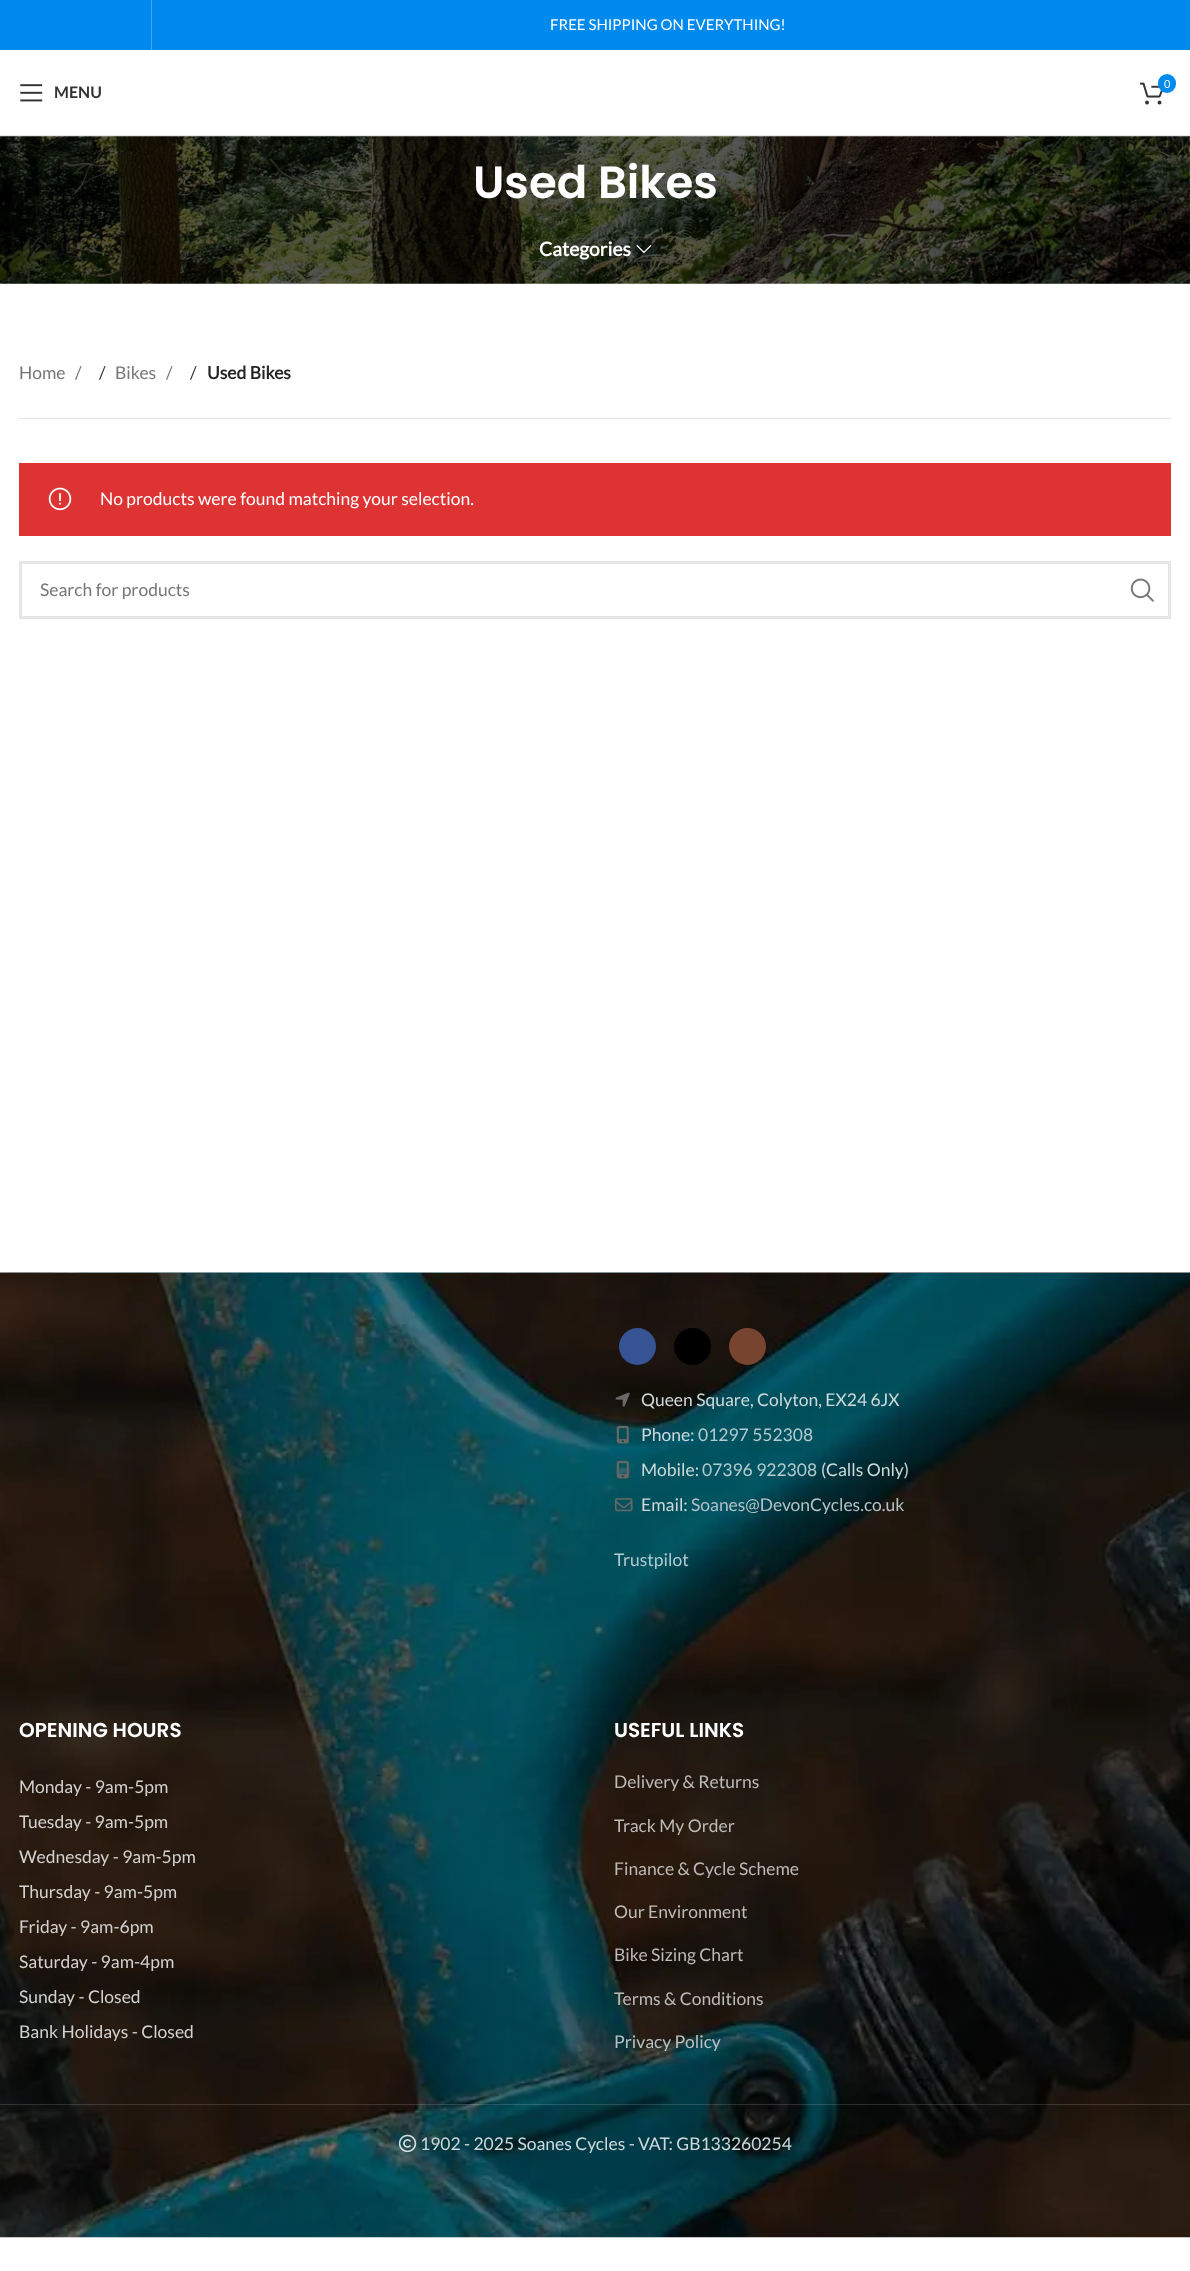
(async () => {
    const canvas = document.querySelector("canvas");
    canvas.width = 1190;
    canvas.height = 2271;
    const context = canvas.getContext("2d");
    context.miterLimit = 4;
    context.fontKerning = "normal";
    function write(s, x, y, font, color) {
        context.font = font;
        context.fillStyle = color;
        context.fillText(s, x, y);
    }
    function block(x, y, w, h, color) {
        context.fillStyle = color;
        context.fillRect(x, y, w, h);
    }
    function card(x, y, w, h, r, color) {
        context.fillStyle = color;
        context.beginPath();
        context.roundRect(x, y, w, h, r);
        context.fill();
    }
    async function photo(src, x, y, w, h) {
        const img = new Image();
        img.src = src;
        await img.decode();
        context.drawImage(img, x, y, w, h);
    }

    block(0, 0, 1190, 2271, "rgb(255, 255, 255)");
    block(0, 0, 1190, 50, "rgb(0, 138, 238)");
    block(151, 0, 1, 50, "rgb(64, 167, 242)");
    write("FREE SHIPPING ON EVERYTHING!", 550, 30, "15px Lato", "rgb(255, 255, 255)");
    block(0, 135, 1190, 1, "rgb(230, 230, 230)");
    await photo("media/1.png", 1140, 82, 23, 23);
    card(1158, 74, 18, 19, 9, "rgb(0, 138, 238)");
    write("0", 1164, 88, "11px Lato", "rgb(255, 255, 255)");
    await photo("media/2.png", 20, 84, 23, 18);
    write("MENU", 54, 98, "bold 16px 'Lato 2'", "rgb(51, 51, 51)");
    await photo("media/3.png", 0, 136, 1190, 148);
    write("Used Bikes", 473, 198, "600 45px Poppins", "rgb(255, 255, 255)");
    write("Categories", 539, 256, "bold 19.25px Lato", "rgb(255, 255, 255)");
    await photo("media/4.png", 636, 244, 16, 10);
    block(19, 418, 1152, 1, "rgb(228, 228, 228)");
    write("Home", 19, 379, "17.5px Lato", "rgb(118, 118, 118)");
    write("/", 75, 379, "17.5px Lato", "rgb(118, 118, 118)");
    write("/", 99, 379, "17.5px Lato", "rgb(51, 51, 51)");
    write("Bikes", 115, 379, "17.5px Lato", "rgb(118, 118, 118)");
    write("/", 166, 379, "17.5px Lato", "rgb(118, 118, 118)");
    write("/", 190, 379, "17.5px Lato", "rgb(51, 51, 51)");
    write("Used Bikes", 207, 379, "bold 17.5px Lato", "rgb(36, 36, 36)");
    block(19, 463, 1152, 73, "rgb(221, 51, 51)");
    await photo("media/5.png", 48, 487, 24, 24);
    write("No products were found matching your selection.", 100, 505, "17.5px Lato", "rgb(255, 255, 255)");
    context.strokeStyle = "rgb(230, 230, 230)";
    context.lineWidth = 3;
    context.strokeRect(20.5, 562.5, 1149, 55);
    write("Search for products", 40, 596, "17.5px Lato", "rgb(118, 118, 118)");
    await photo("media/6.png", 1130, 578, 24, 24);
    await photo("media/7.png", 0, 1272, 1190, 966);
    context.fillStyle = "rgb(54, 84, 147)";
    context.beginPath();
    context.arc(637.5, 1346.5, 18.5, 0, Math.PI * 2);
    context.fill();
    context.fillStyle = "rgb(0, 0, 0)";
    context.beginPath();
    context.arc(692.5, 1346.5, 18.5, 0, Math.PI * 2);
    context.fill();
    context.fillStyle = "rgb(119, 68, 48)";
    context.beginPath();
    context.arc(747.5, 1346.5, 18.5, 0, Math.PI * 2);
    context.fill();
    await photo("media/8.png", 615, 1392, 15, 15);
    write("Queen Square, Colyton, EX24 6JX", 641, 1406, "17.5px Lato", "rgb(205, 217, 218)");
    await photo("media/9.png", 616, 1425, 13, 19);
    write("Phone:", 641, 1441, "17.5px Lato", "rgb(205, 217, 218)");
    write("01297 552308", 698, 1441, "17.5px Lato", "rgb(179, 203, 207)");
    await photo("media/10.png", 616, 1460, 13, 19);
    write("Mobile:", 641, 1476, "17.5px Lato", "rgb(205, 217, 218)");
    write("07396 922308", 702, 1476, "17.5px Lato", "rgb(179, 203, 207)");
    write("(Calls Only)", 821, 1476, "17.5px Lato", "rgb(205, 217, 218)");
    await photo("media/11.png", 615, 1498, 18, 14);
    write("Email:", 641, 1511, "17.5px Lato", "rgb(205, 217, 218)");
    write("Soanes@DevonCycles.co.uk", 691, 1511, "17.5px Lato", "rgb(180, 194, 197)");
    write("Trustpilot", 614, 1566, "17.5px Lato", "rgb(179, 203, 207)");
    write("OPENING HOURS", 19, 1737, "600 20px Poppins", "rgb(255, 255, 255)");
    write("Monday - 9am-5pm", 19, 1793, "17.5px Lato", "rgb(211, 209, 207)");
    write("Tuesday - 9am-5pm", 19, 1828, "17.5px Lato", "rgb(211, 209, 207)");
    write("Wednesday - 9am-5pm", 19, 1863, "17.5px Lato", "rgb(211, 209, 207)");
    write("Thursday - 9am-5pm", 19, 1898, "17.5px Lato", "rgb(211, 209, 207)");
    write("Friday - 9am-6pm", 19, 1933, "17.5px Lato", "rgb(211, 209, 207)");
    write("Saturday - 9am-4pm", 19, 1968, "17.5px Lato", "rgb(211, 209, 207)");
    write("Sunday - Closed", 19, 2003, "17.5px Lato", "rgb(211, 209, 207)");
    write("Bank Holidays - Closed", 19, 2038, "17.5px Lato", "rgb(211, 209, 207)");
    write("USEFUL LINKS", 614, 1737, "600 20px Poppins", "rgb(255, 255, 255)");
    write("Delivery & Returns", 614, 1788, "17.5px Lato", "rgb(189, 186, 183)");
    write("Track My Order", 614, 1832, "17.5px Lato", "rgb(189, 186, 183)");
    write("Finance & Cycle Scheme", 614, 1875, "17.5px Lato", "rgb(189, 186, 183)");
    write("Our Environment", 614, 1918, "17.5px Lato", "rgb(189, 186, 183)");
    write("Bike Sizing Chart", 614, 1961, "17.5px Lato", "rgb(189, 186, 183)");
    write("Terms & Conditions", 614, 2005, "17.5px Lato", "rgb(189, 186, 183)");
    write("Privacy Policy", 614, 2048, "17.5px Lato", "rgb(186, 193, 194)");
    block(0, 2104, 1190, 1, "rgba(255, 255, 255, 0.15)");
    await photo("media/12.png", 398, 2134, 19, 19);
    write("1902 - 2025 Soanes Cycles - VAT: GB133260254", 420, 2150, "17.5px Lato", "rgb(205, 217, 218)");
})();
